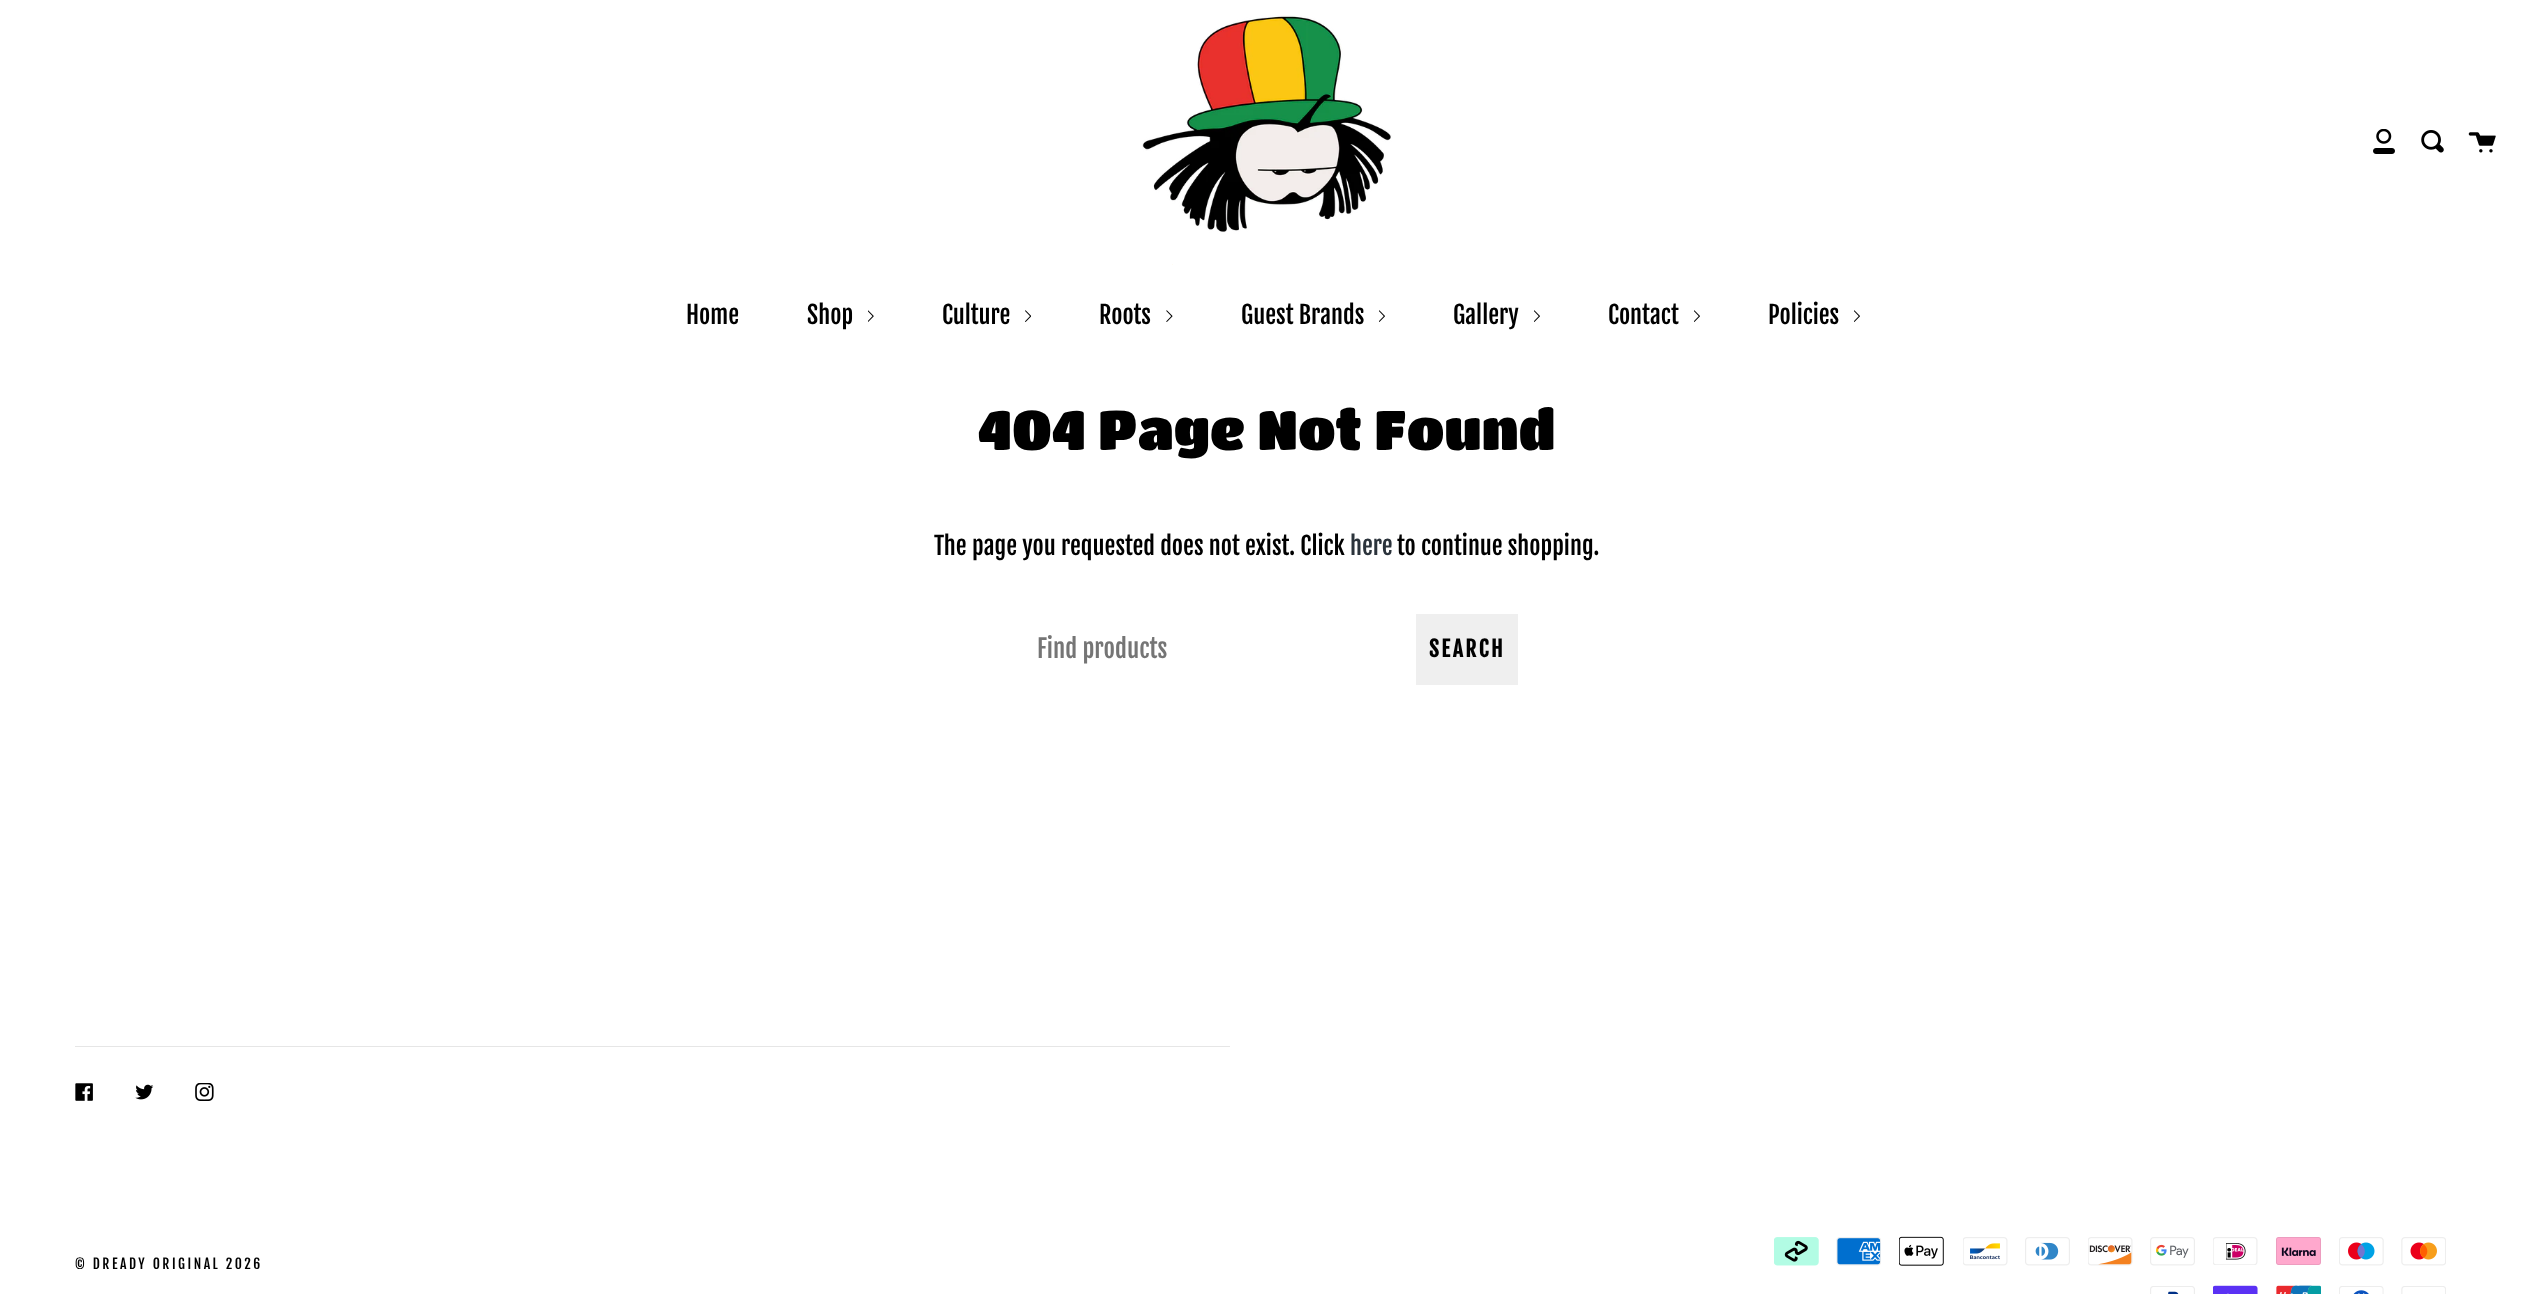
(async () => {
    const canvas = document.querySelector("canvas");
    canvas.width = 2533;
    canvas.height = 1294;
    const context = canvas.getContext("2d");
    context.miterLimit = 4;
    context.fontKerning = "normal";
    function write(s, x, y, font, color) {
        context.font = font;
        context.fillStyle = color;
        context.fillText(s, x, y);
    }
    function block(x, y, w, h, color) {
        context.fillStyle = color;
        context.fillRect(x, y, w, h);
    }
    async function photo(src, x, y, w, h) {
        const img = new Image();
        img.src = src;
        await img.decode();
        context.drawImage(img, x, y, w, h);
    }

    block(0, 0, 2533, 1294, "rgb(255, 255, 255)");
    await photo("media/1.png", 1142, 15, 250, 250);
    await photo("media/2.png", 2373, 129, 22, 25);
    await photo("media/3.png", 2421, 130, 23, 23);
    await photo("media/4.png", 2468, 132, 28, 21);
    write("Home", 686, 324, "24.25px Fjalla One", "rgb(0, 0, 0)");
    write("Shop", 807, 324, "24.25px Fjalla One", "rgb(0, 0, 0)");
    await photo("media/5.png", 868, 310, 6, 12);
    write("Culture", 942, 324, "24.25px Fjalla One", "rgb(0, 0, 0)");
    await photo("media/6.png", 1025, 310, 6, 12);
    write("Roots", 1099, 324, "24.25px Fjalla One", "rgb(0, 0, 0)");
    await photo("media/7.png", 1166, 310, 7, 12);
    write("Guest Brands", 1241, 324, "24.25px Fjalla One", "rgb(0, 0, 0)");
    await photo("media/8.png", 1379, 310, 6, 12);
    write("Gallery", 1453, 324, "24.25px Fjalla One", "rgb(0, 0, 0)");
    await photo("media/8.png", 1534, 310, 6, 12);
    write("Contact", 1608, 324, "24.25px Fjalla One", "rgb(0, 0, 0)");
    await photo("media/8.png", 1694, 310, 6, 12);
    write("Policies", 1768, 324, "24.25px Fjalla One", "rgb(0, 0, 0)");
    await photo("media/8.png", 1854, 310, 6, 12);
    write("404 Page Not Found", 978, 450, "55px Titan One", "rgb(0, 0, 0)");
    write("The page you requested does not exist. Click", 934, 555, "24.25px Fjalla One", "rgb(0, 0, 0)");
    write("here", 1350, 555, "24.25px Fjalla One", "rgb(43, 51, 59)");
    write("to continue shopping.", 1397, 555, "24.25px Fjalla One", "rgb(0, 0, 0)");
    write("Find products", 1037, 658, "24.75px Fjalla One", "rgb(117, 117, 117)");
    block(1416, 614, 102, 71, "rgb(239, 239, 239)");
    context.letterSpacing = "2.5px";
    write("SEARCH", 1429, 657, "bold 21.5px Fjalla One", "rgb(0, 0, 0)");
    block(75, 1046, 1155, 1, "rgb(230, 230, 230)");
    await photo("media/9.png", 75, 1083, 18, 18);
    await photo("media/10.png", 135, 1084, 19, 16);
    await photo("media/11.png", 195, 1083, 19, 18);
    write("© DREADY ORIGINAL 2026", 75, 1269, "13.75px Fjalla One", "rgb(0, 0, 0)");
    await photo("media/12.png", 1774, 1237, 45, 29);
    await photo("media/13.png", 1836, 1237, 45, 29);
    await photo("media/14.png", 1899, 1236, 45, 30);
    await photo("media/15.png", 1963, 1237, 45, 29);
    await photo("media/16.png", 2025, 1237, 45, 29);
    await photo("media/17.png", 2088, 1237, 45, 29);
    await photo("media/18.png", 2150, 1237, 45, 29);
    await photo("media/19.png", 2213, 1237, 45, 28);
    await photo("media/20.png", 2276, 1237, 45, 28);
    await photo("media/21.png", 2339, 1237, 45, 29);
    await photo("media/22.png", 2401, 1237, 45, 29);
    await photo("media/23.png", 2150, 1286, 45, 8);
    await photo("media/24.png", 2213, 1285, 45, 9);
    await photo("media/25.png", 2276, 1285, 45, 9);
    await photo("media/26.png", 2339, 1286, 45, 8);
    await photo("media/27.png", 2401, 1286, 45, 8);
})();
